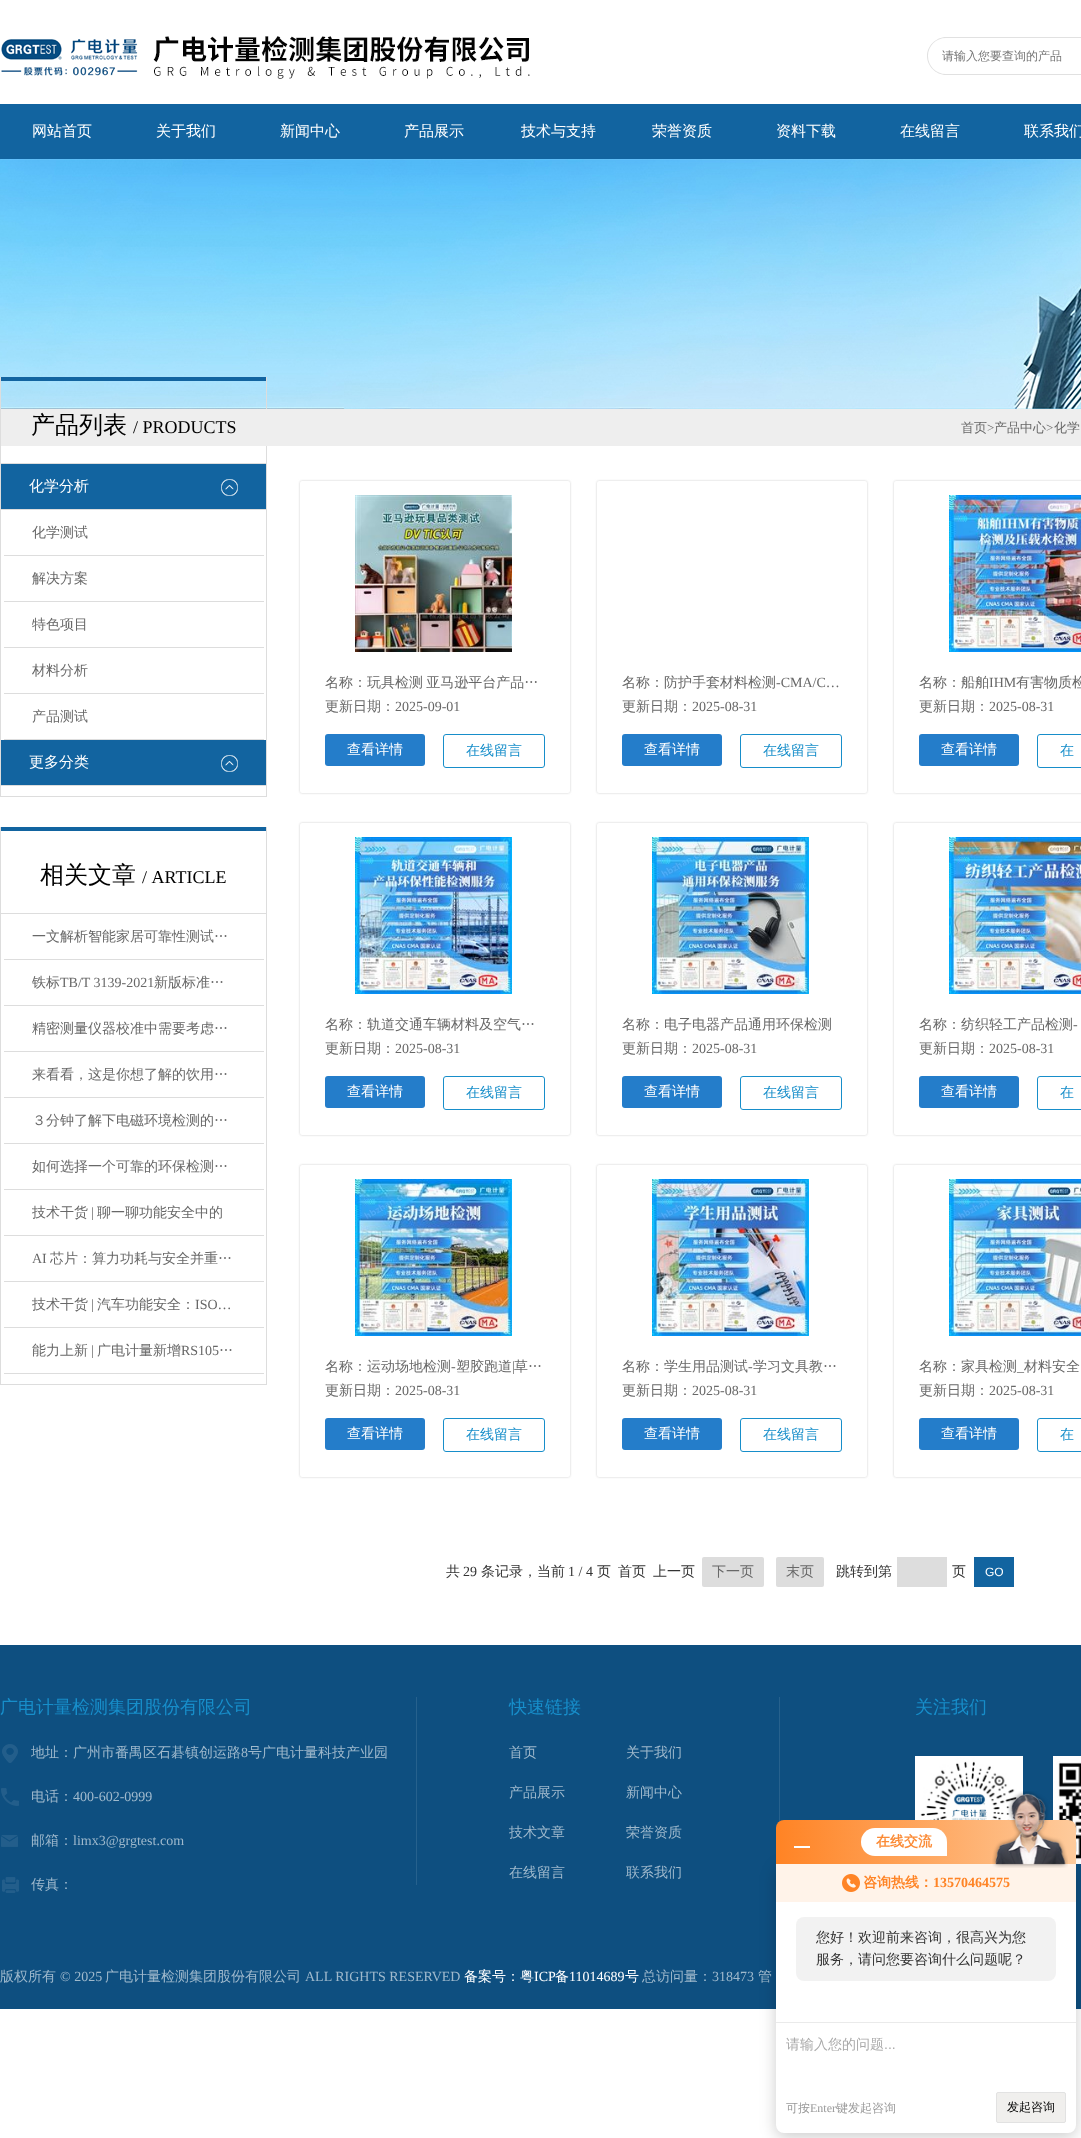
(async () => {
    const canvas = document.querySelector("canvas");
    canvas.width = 1081;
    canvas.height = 2138;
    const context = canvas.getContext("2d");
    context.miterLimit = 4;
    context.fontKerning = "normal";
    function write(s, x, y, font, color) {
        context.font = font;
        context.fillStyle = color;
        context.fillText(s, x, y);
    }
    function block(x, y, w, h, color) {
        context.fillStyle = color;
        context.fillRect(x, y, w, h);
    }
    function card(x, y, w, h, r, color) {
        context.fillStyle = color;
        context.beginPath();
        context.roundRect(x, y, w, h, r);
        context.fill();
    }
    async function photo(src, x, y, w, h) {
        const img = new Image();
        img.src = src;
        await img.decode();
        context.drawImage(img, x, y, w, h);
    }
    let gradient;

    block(0, 0, 1081, 2138, "rgb(255, 255, 255)");
    block(1, 409, 264, 37, "rgb(238, 238, 238)");
    await photo("media/1.png", 1, 36, 529, 43);
    context.fillStyle = "rgb(225, 225, 225)";
    context.beginPath();
    context.moveTo(946, 37);
    context.lineTo(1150, 37);
    context.lineTo(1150, 75);
    context.lineTo(946, 75);
    context.bezierCurveTo(936, 75, 927, 66, 927, 56);
    context.bezierCurveTo(927, 46, 936, 37, 946, 37);
    context.closePath();
    context.moveTo(946, 38);
    context.lineTo(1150, 38);
    context.lineTo(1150, 74);
    context.lineTo(946, 74);
    context.bezierCurveTo(936, 74, 928, 66, 928, 56);
    context.bezierCurveTo(928, 46, 936, 38, 946, 38);
    context.closePath();
    context.fill("evenodd");
    write("请输入您要查询的产品", 942, 60, "500 12px WenQuanYi Zen Hei", "rgb(117, 117, 117)");
    block(0, 104, 1081, 55, "rgb(18, 100, 160)");
    write("网站首页", 32, 136, "500 15px WenQuanYi Zen Hei", "rgb(255, 255, 255)");
    write("关于我们", 156, 136, "500 15px WenQuanYi Zen Hei", "rgb(255, 255, 255)");
    write("新闻中心", 280, 136, "500 15px WenQuanYi Zen Hei", "rgb(255, 255, 255)");
    write("产品展示", 404, 136, "500 15px WenQuanYi Zen Hei", "rgb(255, 255, 255)");
    write("技术与支持", 521, 136, "500 15px WenQuanYi Zen Hei", "rgb(255, 255, 255)");
    write("荣誉资质", 652, 136, "500 15px WenQuanYi Zen Hei", "rgb(255, 255, 255)");
    write("资料下载", 776, 136, "500 15px WenQuanYi Zen Hei", "rgb(255, 255, 255)");
    write("在线留言", 900, 136, "500 15px WenQuanYi Zen Hei", "rgb(255, 255, 255)");
    write("联系我们", 1024, 136, "500 15px WenQuanYi Zen Hei", "rgb(255, 255, 255)");
    await photo("media/2.png", 0, 159, 1081, 250);
    block(266, 377, 1, 420, "rgb(221, 221, 221)");
    block(0, 796, 267, 1, "rgb(221, 221, 221)");
    block(0, 377, 1, 420, "rgb(221, 221, 221)");
    block(1, 377, 265, 4, "rgb(18, 100, 160)");
    block(1, 463, 265, 1, "rgb(221, 221, 221)");
    write("产品列表", 31, 433, "500 24px WenQuanYi Zen Hei", "rgb(0, 0, 0)");
    write("/ PRODUCTS", 133, 433, "18px Liberation Serif", "rgb(0, 0, 0)");
    block(1, 464, 265, 45, "rgb(18, 100, 160)");
    await photo("media/3.png", 221, 479, 17, 17);
    block(1, 509, 265, 1, "rgb(221, 221, 221)");
    write("化学分析", 29, 491, "500 15px WenQuanYi Zen Hei", "rgb(255, 255, 255)");
    block(4, 555, 260, 1, "rgb(221, 221, 221)");
    write("化学测试", 32, 537, "500 14px WenQuanYi Zen Hei", "rgb(104, 104, 104)");
    block(4, 601, 260, 1, "rgb(221, 221, 221)");
    write("解决方案", 32, 583, "500 14px WenQuanYi Zen Hei", "rgb(104, 104, 104)");
    block(4, 647, 260, 1, "rgb(221, 221, 221)");
    write("特色项目", 32, 629, "500 14px WenQuanYi Zen Hei", "rgb(104, 104, 104)");
    block(4, 693, 260, 1, "rgb(221, 221, 221)");
    write("材料分析", 32, 675, "500 14px WenQuanYi Zen Hei", "rgb(104, 104, 104)");
    block(4, 739, 260, 1, "rgb(221, 221, 221)");
    write("产品测试", 32, 721, "500 14px WenQuanYi Zen Hei", "rgb(104, 104, 104)");
    block(1, 740, 265, 45, "rgb(18, 100, 160)");
    await photo("media/3.png", 221, 755, 17, 17);
    block(1, 785, 265, 1, "rgb(221, 221, 221)");
    write("更多分类", 29, 767, "500 15px WenQuanYi Zen Hei", "rgb(255, 255, 255)");
    block(266, 827, 1, 558, "rgb(221, 221, 221)");
    block(0, 1384, 267, 1, "rgb(221, 221, 221)");
    block(0, 827, 1, 558, "rgb(221, 221, 221)");
    block(1, 827, 265, 4, "rgb(18, 100, 160)");
    block(1, 913, 265, 1, "rgb(221, 221, 221)");
    write("相关文章", 40, 883, "500 24px WenQuanYi Zen Hei", "rgb(0, 0, 0)");
    context.wordSpacing = "1px";
    write("/ ARTICLE", 142, 883, "18px Liberation Serif", "rgb(0, 0, 0)");
    block(4, 959, 260, 1, "rgb(221, 221, 221)");
    context.wordSpacing = "0px";
    write("一文解析智能家居可靠性测试…", 32, 941, "500 14px WenQuanYi Zen Hei", "rgb(104, 104, 104)");
    block(4, 1005, 260, 1, "rgb(221, 221, 221)");
    write("铁标", 32, 987, "500 14px WenQuanYi Zen Hei", "rgb(104, 104, 104)");
    write("TB/T 3139-2021", 60, 987, "14px Liberation Serif", "rgb(104, 104, 104)");
    write("新版标准…", 154, 987, "500 14px WenQuanYi Zen Hei", "rgb(104, 104, 104)");
    block(4, 1051, 260, 1, "rgb(221, 221, 221)");
    write("精密测量仪器校准中需要考虑…", 32, 1033, "500 14px WenQuanYi Zen Hei", "rgb(104, 104, 104)");
    block(4, 1097, 260, 1, "rgb(221, 221, 221)");
    write("来看看，这是你想了解的饮用…", 32, 1079, "500 14px WenQuanYi Zen Hei", "rgb(104, 104, 104)");
    block(4, 1143, 260, 1, "rgb(221, 221, 221)");
    write("３分钟了解下电磁环境检测的…", 32, 1125, "500 14px WenQuanYi Zen Hei", "rgb(104, 104, 104)");
    block(4, 1189, 260, 1, "rgb(221, 221, 221)");
    write("如何选择一个可靠的环保检测…", 32, 1171, "500 14px WenQuanYi Zen Hei", "rgb(104, 104, 104)");
    block(4, 1235, 260, 1, "rgb(221, 221, 221)");
    write("技术干货", 32, 1217, "500 14px WenQuanYi Zen Hei", "rgb(104, 104, 104)");
    write("|", 91, 1217, "14px Liberation Serif", "rgb(104, 104, 104)");
    write("聊一聊功能安全中的", 97, 1217, "500 14px WenQuanYi Zen Hei", "rgb(104, 104, 104)");
    block(4, 1281, 260, 1, "rgb(221, 221, 221)");
    write("AI", 32, 1263, "14px Liberation Serif", "rgb(104, 104, 104)");
    write("芯片：算力功耗与安全并重…", 50, 1263, "500 14px WenQuanYi Zen Hei", "rgb(104, 104, 104)");
    block(4, 1327, 260, 1, "rgb(221, 221, 221)");
    write("技术干货", 32, 1309, "500 14px WenQuanYi Zen Hei", "rgb(104, 104, 104)");
    write("|", 91, 1309, "14px Liberation Serif", "rgb(104, 104, 104)");
    write("汽车功能安全：", 97, 1309, "500 14px WenQuanYi Zen Hei", "rgb(104, 104, 104)");
    write("ISO…", 195, 1309, "14px Liberation Serif", "rgb(104, 104, 104)");
    block(4, 1373, 260, 1, "rgb(221, 221, 221)");
    write("能力上新", 32, 1355, "500 14px WenQuanYi Zen Hei", "rgb(104, 104, 104)");
    write("|", 91, 1355, "14px Liberation Serif", "rgb(104, 104, 104)");
    write("广电计量新增", 97, 1355, "500 14px WenQuanYi Zen Hei", "rgb(104, 104, 104)");
    write("RS105", 181, 1355, "14px Liberation Serif", "rgb(104, 104, 104)");
    write("…", 219, 1355, "500 14px WenQuanYi Zen Hei", "rgb(104, 104, 104)");
    block(265, 409, 816, 37, "rgb(238, 238, 238)");
    write("首页", 961, 432, "500 13px WenQuanYi Zen Hei", "rgb(104, 104, 104)");
    write(">", 987, 432, "13px Liberation Serif", "rgb(104, 104, 104)");
    write("产品中心", 994, 432, "500 13px WenQuanYi Zen Hei", "rgb(104, 104, 104)");
    write(">", 1046, 432, "13px Liberation Serif", "rgb(104, 104, 104)");
    write("化学", 1054, 432, "500 13px WenQuanYi Zen Hei", "rgb(104, 104, 104)");
    context.fillStyle = "rgb(204, 204, 204)";
    context.filter = "blur(1px)";
    context.beginPath();
    context.roundRect(300, 481, 270, 312, 2);
    context.fill();
    context.filter = "none";
    card(300, 481, 270, 312, 2, "rgb(255, 255, 255)");
    await photo("media/4.png", 355, 495, 157, 157);
    context.wordSpacing = "-1px";
    write("名称：玩具检测 亚马逊平台产品…", 325, 687, "500 14px WenQuanYi Zen Hei", "rgb(104, 104, 104)");
    context.wordSpacing = "0px";
    write("更新日期：", 325, 711, "500 14px WenQuanYi Zen Hei", "rgb(104, 104, 104)");
    write("2025-09-01", 395, 711, "14px Liberation Serif", "rgb(104, 104, 104)");
    card(325, 734, 100, 32, 3, "rgb(36, 125, 202)");
    write("查看详情", 347, 754, "500 14px WenQuanYi Zen Hei", "rgb(255, 255, 255)");
    context.beginPath();
    context.roundRect(443.5, 734.5, 101, 33, 2.5);
    context.strokeStyle = "rgb(23, 142, 202)";
    context.stroke();
    write("在线留言", 466, 755, "500 14px WenQuanYi Zen Hei", "rgb(23, 142, 202)");
    context.fillStyle = "rgb(204, 204, 204)";
    context.filter = "blur(1px)";
    context.beginPath();
    context.roundRect(597, 481, 270, 312, 2);
    context.fill();
    context.filter = "none";
    card(597, 481, 270, 312, 2, "rgb(255, 255, 255)");
    write("名称：防护手套材料检测", 622, 687, "500 14px WenQuanYi Zen Hei", "rgb(104, 104, 104)");
    write("-CMA/C…", 776, 687, "14px Liberation Serif", "rgb(104, 104, 104)");
    write("更新日期：", 622, 711, "500 14px WenQuanYi Zen Hei", "rgb(104, 104, 104)");
    write("2025-08-31", 692, 711, "14px Liberation Serif", "rgb(104, 104, 104)");
    card(622, 734, 100, 32, 3, "rgb(36, 125, 202)");
    write("查看详情", 644, 754, "500 14px WenQuanYi Zen Hei", "rgb(255, 255, 255)");
    context.beginPath();
    context.roundRect(740.5, 734.5, 101, 33, 2.5);
    context.stroke();
    write("在线留言", 763, 755, "500 14px WenQuanYi Zen Hei", "rgb(23, 142, 202)");
    context.fillStyle = "rgb(204, 204, 204)";
    context.filter = "blur(1px)";
    context.beginPath();
    context.roundRect(894, 481, 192, 312, 2);
    context.fill();
    context.filter = "none";
    card(894, 481, 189, 312, 2, "rgb(255, 255, 255)");
    await photo("media/5.png", 949, 495, 132, 157);
    write("名称：船舶", 919, 687, "500 14px WenQuanYi Zen Hei", "rgb(104, 104, 104)");
    write("IHM", 989, 687, "14px Liberation Serif", "rgb(104, 104, 104)");
    write("有害物质检", 1016, 687, "500 14px WenQuanYi Zen Hei", "rgb(104, 104, 104)");
    write("更新日期：", 919, 711, "500 14px WenQuanYi Zen Hei", "rgb(104, 104, 104)");
    write("2025-08-31", 989, 711, "14px Liberation Serif", "rgb(104, 104, 104)");
    card(919, 734, 100, 32, 3, "rgb(36, 125, 202)");
    write("查看详情", 941, 754, "500 14px WenQuanYi Zen Hei", "rgb(255, 255, 255)");
    context.beginPath();
    context.roundRect(1037.5, 734.5, 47, 33, 2.5);
    context.stroke();
    write("在", 1060, 755, "500 14px WenQuanYi Zen Hei", "rgb(23, 142, 202)");
    context.fillStyle = "rgb(204, 204, 204)";
    context.filter = "blur(1px)";
    context.beginPath();
    context.roundRect(300, 823, 270, 312, 2);
    context.fill();
    context.filter = "none";
    card(300, 823, 270, 312, 2, "rgb(255, 255, 255)");
    await photo("media/6.png", 355, 837, 157, 157);
    write("名称：轨道交通车辆材料及空气…", 325, 1029, "500 14px WenQuanYi Zen Hei", "rgb(104, 104, 104)");
    write("更新日期：", 325, 1053, "500 14px WenQuanYi Zen Hei", "rgb(104, 104, 104)");
    write("2025-08-31", 395, 1053, "14px Liberation Serif", "rgb(104, 104, 104)");
    card(325, 1076, 100, 32, 3, "rgb(36, 125, 202)");
    write("查看详情", 347, 1096, "500 14px WenQuanYi Zen Hei", "rgb(255, 255, 255)");
    context.beginPath();
    context.roundRect(443.5, 1076.5, 101, 33, 2.5);
    context.stroke();
    write("在线留言", 466, 1097, "500 14px WenQuanYi Zen Hei", "rgb(23, 142, 202)");
    context.fillStyle = "rgb(204, 204, 204)";
    context.filter = "blur(1px)";
    context.beginPath();
    context.roundRect(597, 823, 270, 312, 2);
    context.fill();
    context.filter = "none";
    card(597, 823, 270, 312, 2, "rgb(255, 255, 255)");
    await photo("media/7.png", 652, 837, 157, 157);
    write("名称：电子电器产品通用环保检测", 622, 1029, "500 14px WenQuanYi Zen Hei", "rgb(104, 104, 104)");
    write("更新日期：", 622, 1053, "500 14px WenQuanYi Zen Hei", "rgb(104, 104, 104)");
    write("2025-08-31", 692, 1053, "14px Liberation Serif", "rgb(104, 104, 104)");
    card(622, 1076, 100, 32, 3, "rgb(36, 125, 202)");
    write("查看详情", 644, 1096, "500 14px WenQuanYi Zen Hei", "rgb(255, 255, 255)");
    context.beginPath();
    context.roundRect(740.5, 1076.5, 101, 33, 2.5);
    context.stroke();
    write("在线留言", 763, 1097, "500 14px WenQuanYi Zen Hei", "rgb(23, 142, 202)");
    context.fillStyle = "rgb(204, 204, 204)";
    context.filter = "blur(1px)";
    context.beginPath();
    context.roundRect(894, 823, 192, 312, 2);
    context.fill();
    context.filter = "none";
    card(894, 823, 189, 312, 2, "rgb(255, 255, 255)");
    await photo("media/8.png", 949, 837, 132, 157);
    write("名称：纺织轻工产品检测", 919, 1029, "500 14px WenQuanYi Zen Hei", "rgb(104, 104, 104)");
    write("-", 1073, 1029, "14px Liberation Serif", "rgb(104, 104, 104)");
    write("更新日期：", 919, 1053, "500 14px WenQuanYi Zen Hei", "rgb(104, 104, 104)");
    write("2025-08-31", 989, 1053, "14px Liberation Serif", "rgb(104, 104, 104)");
    card(919, 1076, 100, 32, 3, "rgb(36, 125, 202)");
    write("查看详情", 941, 1096, "500 14px WenQuanYi Zen Hei", "rgb(255, 255, 255)");
    context.beginPath();
    context.roundRect(1037.5, 1076.5, 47, 33, 2.5);
    context.stroke();
    write("在", 1060, 1097, "500 14px WenQuanYi Zen Hei", "rgb(23, 142, 202)");
    context.fillStyle = "rgb(204, 204, 204)";
    context.filter = "blur(1px)";
    context.beginPath();
    context.roundRect(300, 1165, 270, 312, 2);
    context.fill();
    context.filter = "none";
    card(300, 1165, 270, 312, 2, "rgb(255, 255, 255)");
    await photo("media/9.png", 355, 1179, 157, 157);
    write("名称：运动场地检测", 325, 1371, "500 14px WenQuanYi Zen Hei", "rgb(104, 104, 104)");
    write("-", 451, 1371, "14px Liberation Serif", "rgb(104, 104, 104)");
    write("塑胶跑道", 456, 1371, "500 14px WenQuanYi Zen Hei", "rgb(104, 104, 104)");
    write("|", 512, 1371, "14px Liberation Serif", "rgb(104, 104, 104)");
    write("草…", 514, 1371, "500 14px WenQuanYi Zen Hei", "rgb(104, 104, 104)");
    write("更新日期：", 325, 1395, "500 14px WenQuanYi Zen Hei", "rgb(104, 104, 104)");
    write("2025-08-31", 395, 1395, "14px Liberation Serif", "rgb(104, 104, 104)");
    card(325, 1418, 100, 32, 3, "rgb(36, 125, 202)");
    write("查看详情", 347, 1438, "500 14px WenQuanYi Zen Hei", "rgb(255, 255, 255)");
    context.beginPath();
    context.roundRect(443.5, 1418.5, 101, 33, 2.5);
    context.stroke();
    write("在线留言", 466, 1439, "500 14px WenQuanYi Zen Hei", "rgb(23, 142, 202)");
    context.fillStyle = "rgb(204, 204, 204)";
    context.filter = "blur(1px)";
    context.beginPath();
    context.roundRect(597, 1165, 270, 312, 2);
    context.fill();
    context.filter = "none";
    card(597, 1165, 270, 312, 2, "rgb(255, 255, 255)");
    await photo("media/10.png", 652, 1179, 157, 157);
    write("名称：学生用品测试", 622, 1371, "500 14px WenQuanYi Zen Hei", "rgb(104, 104, 104)");
    write("-", 748, 1371, "14px Liberation Serif", "rgb(104, 104, 104)");
    write("学习文具教…", 753, 1371, "500 14px WenQuanYi Zen Hei", "rgb(104, 104, 104)");
    write("更新日期：", 622, 1395, "500 14px WenQuanYi Zen Hei", "rgb(104, 104, 104)");
    write("2025-08-31", 692, 1395, "14px Liberation Serif", "rgb(104, 104, 104)");
    card(622, 1418, 100, 32, 3, "rgb(36, 125, 202)");
    write("查看详情", 644, 1438, "500 14px WenQuanYi Zen Hei", "rgb(255, 255, 255)");
    context.beginPath();
    context.roundRect(740.5, 1418.5, 101, 33, 2.5);
    context.stroke();
    write("在线留言", 763, 1439, "500 14px WenQuanYi Zen Hei", "rgb(23, 142, 202)");
    context.fillStyle = "rgb(204, 204, 204)";
    context.filter = "blur(1px)";
    context.beginPath();
    context.roundRect(894, 1165, 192, 312, 2);
    context.fill();
    context.filter = "none";
    card(894, 1165, 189, 312, 2, "rgb(255, 255, 255)");
    await photo("media/11.png", 949, 1179, 132, 157);
    write("名称：家具检测", 919, 1371, "500 14px WenQuanYi Zen Hei", "rgb(104, 104, 104)");
    write("_", 1017, 1371, "14px Liberation Serif", "rgb(104, 104, 104)");
    write("材料安全", 1024, 1371, "500 14px WenQuanYi Zen Hei", "rgb(104, 104, 104)");
    write("更新日期：", 919, 1395, "500 14px WenQuanYi Zen Hei", "rgb(104, 104, 104)");
    write("2025-08-31", 989, 1395, "14px Liberation Serif", "rgb(104, 104, 104)");
    card(919, 1418, 100, 32, 3, "rgb(36, 125, 202)");
    write("查看详情", 941, 1438, "500 14px WenQuanYi Zen Hei", "rgb(255, 255, 255)");
    context.beginPath();
    context.roundRect(1037.5, 1418.5, 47, 33, 2.5);
    context.stroke();
    write("在", 1060, 1439, "500 14px WenQuanYi Zen Hei", "rgb(23, 142, 202)");
    write("共", 446, 1576, "500 14px WenQuanYi Zen Hei", "rgb(51, 51, 51)");
    write("29", 463, 1576, "14px Liberation Serif", "rgb(51, 51, 51)");
    write("条记录，当前", 481, 1576, "500 14px WenQuanYi Zen Hei", "rgb(51, 51, 51)");
    write("1 / 4", 568, 1576, "14px Liberation Serif", "rgb(51, 51, 51)");
    write("页", 597, 1576, "500 14px WenQuanYi Zen Hei", "rgb(51, 51, 51)");
    write("首页", 618, 1576, "500 14px WenQuanYi Zen Hei", "rgb(51, 51, 51)");
    write("上一页", 653, 1576, "500 14px WenQuanYi Zen Hei", "rgb(51, 51, 51)");
    card(702, 1557, 62, 30, 2, "rgb(221, 221, 221)");
    write("下一页", 712, 1576, "500 14px WenQuanYi Zen Hei", "rgb(104, 104, 104)");
    card(776, 1557, 48, 30, 2, "rgb(221, 221, 221)");
    write("末页", 786, 1576, "500 14px WenQuanYi Zen Hei", "rgb(104, 104, 104)");
    write("跳转到第", 836, 1576, "500 14px WenQuanYi Zen Hei", "rgb(51, 51, 51)");
    block(897, 1557, 50, 30, "rgb(221, 221, 221)");
    write("页", 952, 1576, "500 14px WenQuanYi Zen Hei", "rgb(51, 51, 51)");
    block(974, 1557, 40, 30, "rgb(18, 100, 160)");
    write("GO", 985, 1576, "12px Liberation Sans", "rgb(255, 255, 255)");
    block(0, 1645, 1081, 364, "rgb(14, 79, 128)");
    write("广电计量检测集团股份有限公司", 0, 1713, "500 18px WenQuanYi Zen Hei", "rgb(23, 142, 202)");
    await photo("media/12.png", 2, 1744, 16, 19);
    write("地址：广州市番禺区石碁镇创运路", 31, 1757, "500 14px WenQuanYi Zen Hei", "rgb(159, 185, 204)");
    write("8", 241, 1757, "14px Liberation Serif", "rgb(159, 185, 204)");
    write("号广电计量科技产业园", 248, 1757, "500 14px WenQuanYi Zen Hei", "rgb(159, 185, 204)");
    await photo("media/13.png", 1, 1788, 18, 18);
    write("电话：", 31, 1801, "500 14px WenQuanYi Zen Hei", "rgb(159, 185, 204)");
    write("400-602-0999", 73, 1801, "14px Liberation Serif", "rgb(159, 185, 204)");
    await photo("media/14.png", 1, 1835, 17, 12);
    write("邮箱：", 31, 1845, "500 14px WenQuanYi Zen Hei", "rgb(159, 185, 204)");
    write("limx3@grgtest.com", 73, 1845, "14px Liberation Serif", "rgb(159, 185, 204)");
    await photo("media/15.png", 2, 1877, 17, 16);
    write("传真：", 31, 1889, "500 14px WenQuanYi Zen Hei", "rgb(159, 185, 204)");
    block(779, 1697, 1, 125, "rgb(38, 97, 141)");
    block(416, 1697, 1, 188, "rgb(38, 97, 141)");
    write("快速链接", 509, 1713, "500 18px WenQuanYi Zen Hei", "rgb(23, 142, 202)");
    write("首页", 509, 1757, "500 14px WenQuanYi Zen Hei", "rgb(159, 185, 204)");
    write("关于我们", 626, 1757, "500 14px WenQuanYi Zen Hei", "rgb(159, 185, 204)");
    write("产品展示", 509, 1797, "500 14px WenQuanYi Zen Hei", "rgb(159, 185, 204)");
    write("新闻中心", 626, 1797, "500 14px WenQuanYi Zen Hei", "rgb(159, 185, 204)");
    write("技术文章", 509, 1837, "500 14px WenQuanYi Zen Hei", "rgb(159, 185, 204)");
    write("荣誉资质", 626, 1837, "500 14px WenQuanYi Zen Hei", "rgb(159, 185, 204)");
    write("在线留言", 509, 1877, "500 14px WenQuanYi Zen Hei", "rgb(159, 185, 204)");
    write("联系我们", 626, 1877, "500 14px WenQuanYi Zen Hei", "rgb(159, 185, 204)");
    write("关注我们", 915, 1713, "500 18px WenQuanYi Zen Hei", "rgb(23, 142, 202)");
    await photo("media/16.png", 915, 1756, 108, 64);
    await photo("media/17.png", 1053, 1756, 28, 108);
    write("版权所有", 0, 1981, "500 14px WenQuanYi Zen Hei", "rgb(159, 185, 204)");
    write("© 2025", 60, 1981, "14px Liberation Serif", "rgb(159, 185, 204)");
    write("广电计量检测集团股份有限公司", 105, 1981, "500 14px WenQuanYi Zen Hei", "rgb(159, 185, 204)");
    write("ALL RIGHTS RESERVED", 305, 1981, "14px Liberation Serif", "rgb(159, 185, 204)");
    write("备案号：粤", 464, 1981, "500 14px WenQuanYi Zen Hei", "rgb(255, 255, 255)");
    write("ICP", 534, 1981, "14px Liberation Serif", "rgb(255, 255, 255)");
    write("备", 555, 1981, "500 14px WenQuanYi Zen Hei", "rgb(255, 255, 255)");
    write("11014689", 569, 1981, "14px Liberation Serif", "rgb(255, 255, 255)");
    write("号", 625, 1981, "500 14px WenQuanYi Zen Hei", "rgb(255, 255, 255)");
    write("总访问量：", 642, 1981, "500 14px WenQuanYi Zen Hei", "rgb(159, 185, 204)");
    write("318473", 712, 1981, "14px Liberation Serif", "rgb(159, 185, 204)");
    write("管", 758, 1981, "500 14px WenQuanYi Zen Hei", "rgb(159, 185, 204)");
    context.fillStyle = "rgba(0, 0, 0, 0.2)";
    context.filter = "blur(8px)";
    context.beginPath();
    context.roundRect(776, 1868, 300, 269, 8);
    context.fill();
    context.filter = "none";
    gradient = context.createLinearGradient(776, 1842, 1076, 1842);
    gradient.addColorStop(0, "rgb(255, 131, 36)");
    gradient.addColorStop(1, "rgb(254, 203, 156)");
    context.fillStyle = gradient;
    context.beginPath();
    context.roundRect(776, 1820, 300, 44, [8, 8, 0, 0]);
    context.fill();
    block(794, 1846, 16, 2, "rgb(255, 255, 255)");
    context.beginPath();
    context.roundRect(861, 1828, 86, 28, [14, 14, 0, 14]);
    context.fill();
    write("在线交流", 876, 1846, "bold 14px WenQuanYi Zen Hei", "rgb(251, 139, 54)");
    context.fillStyle = "rgb(255, 255, 255)";
    context.beginPath();
    context.roundRect(776, 1864, 300, 269, [0, 0, 8, 8]);
    context.fill();
    block(776, 1864, 300, 38, "rgb(255, 243, 233)");
    await photo("media/18.png", 992, 1791, 76, 77);
    await photo("media/19.png", 842, 1874, 18, 18);
    write("咨询热线：", 863, 1887, "bold 14px WenQuanYi Zen Hei", "rgb(255, 132, 38)");
    write("13570464575", 933, 1887, "bold 14px Liberation Serif", "rgb(255, 132, 38)");
    card(796, 1917, 260, 64, 8, "rgb(242, 242, 242)");
    write("您好！欢迎前来咨询，很高兴为您", 816, 1942, "500 14px WenQuanYi Zen Hei", "rgb(51, 51, 51)");
    write("服务，请问您要咨询什么问题呢？", 816, 1964, "500 14px WenQuanYi Zen Hei", "rgb(51, 51, 51)");
    block(776, 2022, 300, 1, "rgb(234, 234, 234)");
    write("请输入您的问题", 786, 2049, "500 14px WenQuanYi Zen Hei", "rgb(170, 170, 170)");
    write("...", 884, 2049, "14px Liberation Sans", "rgb(170, 170, 170)");
    write("可按", 786, 2112, "500 12px WenQuanYi Zen Hei", "rgb(153, 153, 153)");
    write("Enter", 810, 2112, "12px Liberation Serif", "rgb(153, 153, 153)");
    write("键发起咨询", 836, 2112, "500 12px WenQuanYi Zen Hei", "rgb(153, 153, 153)");
    context.fillStyle = "rgb(240, 239, 237)";
    context.beginPath();
    context.roundRect(996.5, 2092.5, 69, 30, 1.5);
    context.fill();
    context.strokeStyle = "rgb(226, 226, 226)";
    context.stroke();
    write("发起咨询", 1007, 2111, "500 12px WenQuanYi Zen Hei", "rgb(0, 0, 0)");
})();
